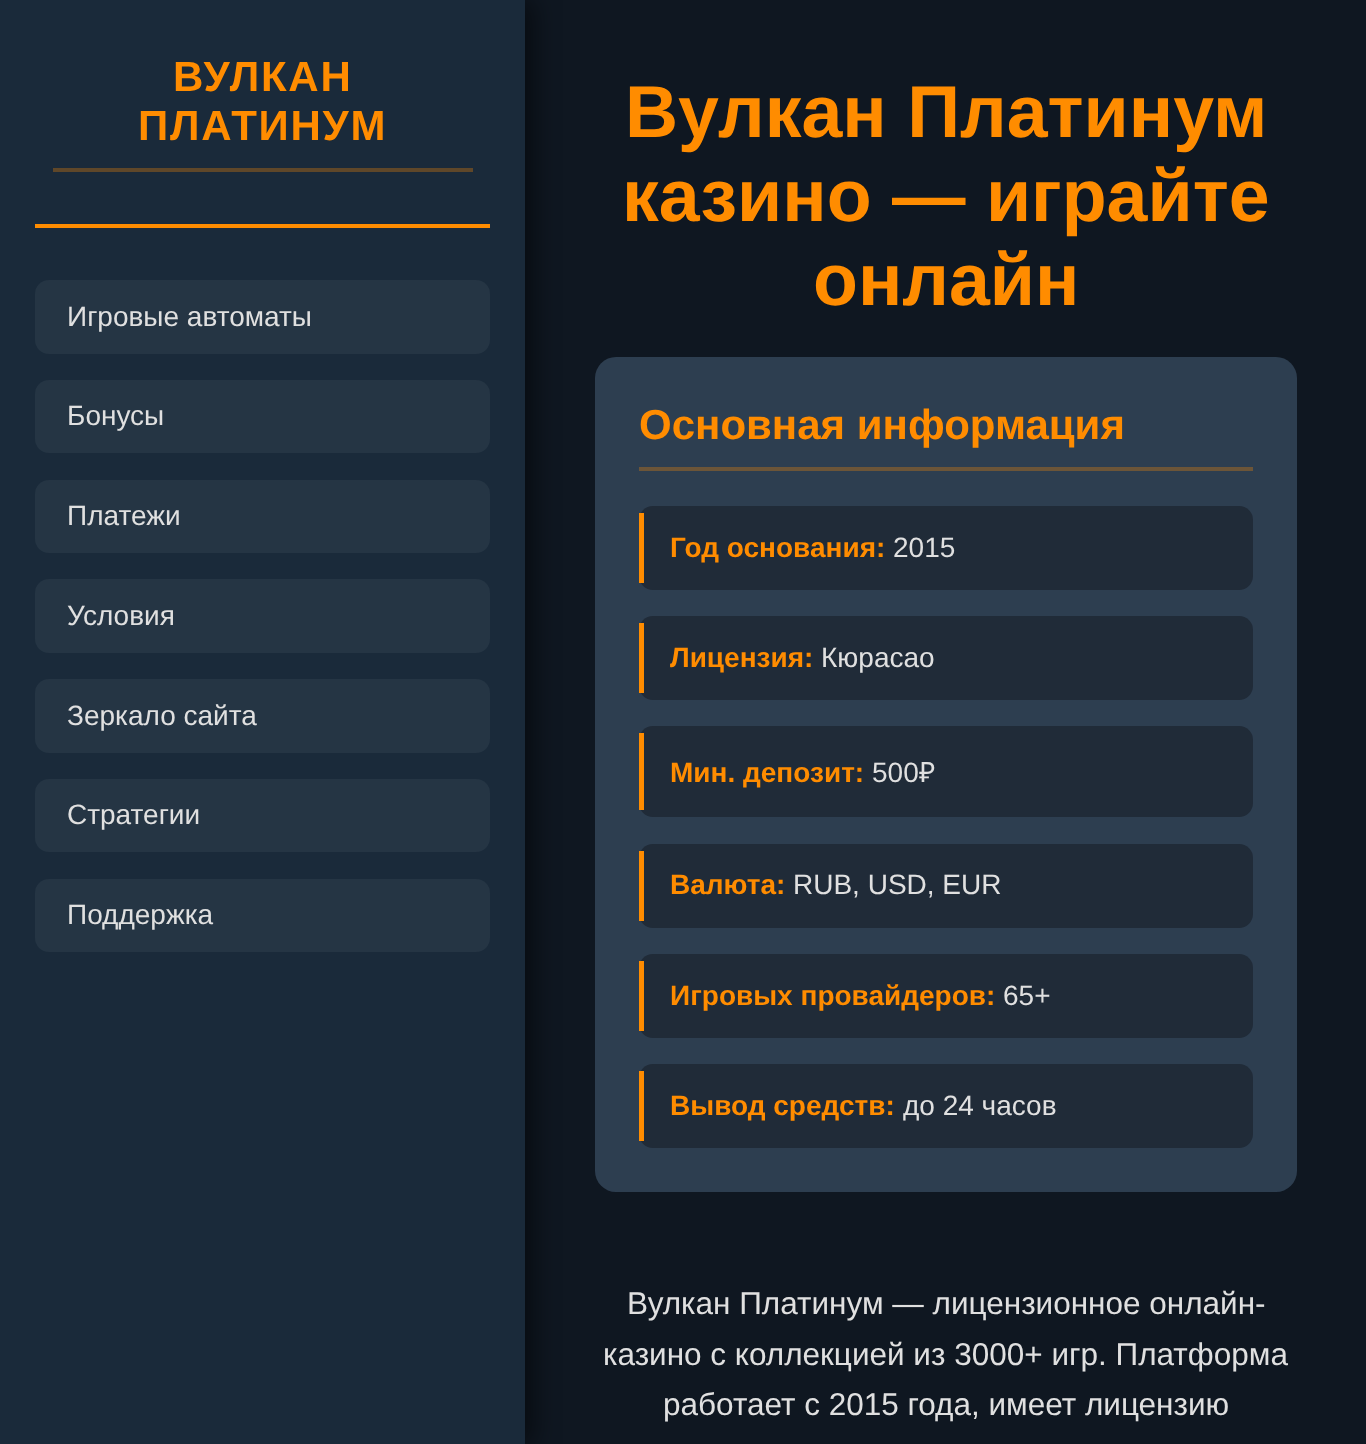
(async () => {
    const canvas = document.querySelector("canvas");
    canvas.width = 1366;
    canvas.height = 1444;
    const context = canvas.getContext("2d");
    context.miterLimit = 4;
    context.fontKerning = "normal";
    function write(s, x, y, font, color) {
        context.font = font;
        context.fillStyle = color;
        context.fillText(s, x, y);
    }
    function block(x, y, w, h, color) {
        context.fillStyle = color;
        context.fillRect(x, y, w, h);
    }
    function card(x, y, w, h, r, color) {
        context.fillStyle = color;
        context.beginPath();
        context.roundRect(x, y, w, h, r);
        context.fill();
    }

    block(0, 0, 1366, 1444, "rgb(15, 23, 33)");
    context.fillStyle = "rgba(0, 0, 0, 0.5)";
    context.filter = "blur(13px)";
    context.beginPath();
    context.rect(9, 0, 525, 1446);
    context.fill();
    context.filter = "none";
    block(0, 0, 525, 1444, "rgb(26, 42, 58)");
    block(35, 224, 455, 4, "rgb(255, 140, 0)");
    block(53, 168, 420, 4, "rgb(95, 71, 41)");
    context.letterSpacing = "1.75px";
    write("ВУЛКАН", 173, 91, "bold 42px Liberation Sans", "rgb(255, 140, 0)");
    write("ПЛАТИНУМ", 138, 140, "bold 42px Liberation Sans", "rgb(255, 140, 0)");
    card(35, 280, 455, 74, 14, "rgb(37, 53, 68)");
    context.letterSpacing = "0px";
    write("Игровые автоматы", 67, 326, "28px Liberation Sans", "rgb(224, 224, 224)");
    card(35, 380, 455, 73, 14, "rgb(37, 53, 68)");
    write("Бонусы", 67, 425, "28px Liberation Sans", "rgb(224, 224, 224)");
    card(35, 480, 455, 73, 14, "rgb(37, 53, 68)");
    write("Платежи", 67, 525, "28px Liberation Sans", "rgb(224, 224, 224)");
    card(35, 579, 455, 74, 14, "rgb(37, 53, 68)");
    write("Условия", 67, 625, "28px Liberation Sans", "rgb(224, 224, 224)");
    card(35, 679, 455, 74, 14, "rgb(37, 53, 68)");
    write("Зеркало сайта", 67, 725, "28px Liberation Sans", "rgb(224, 224, 224)");
    card(35, 779, 455, 73, 14, "rgb(37, 53, 68)");
    write("Стратегии", 67, 824, "28px Liberation Sans", "rgb(224, 224, 224)");
    card(35, 879, 455, 73, 14, "rgb(37, 53, 68)");
    write("Поддержка", 67, 924, "28px Liberation Sans", "rgb(224, 224, 224)");
    write("Вулкан Платинум", 625, 137, "bold 73.5px Liberation Sans", "rgb(255, 140, 0)");
    write("казино — играйте", 622, 221, "bold 73.5px Liberation Sans", "rgb(255, 140, 0)");
    write("онлайн", 813, 305, "bold 73.5px Liberation Sans", "rgb(255, 140, 0)");
    card(595, 357, 702, 835, 21, "rgb(45, 62, 80)");
    block(639, 467, 614, 4, "rgb(108, 85, 56)");
    write("Основная информация", 639, 439, "bold 42px Liberation Sans", "rgb(255, 140, 0)");
    card(639, 506, 614, 84, 14, "rgb(32, 43, 56)");
    block(639, 513, 5, 70, "rgb(255, 140, 0)");
    write("Год основания:", 670, 557, "bold 28px Liberation Sans", "rgb(255, 140, 0)");
    write("2015", 893, 557, "28px Liberation Sans", "rgb(224, 224, 224)");
    card(639, 616, 614, 84, 14, "rgb(32, 43, 56)");
    block(639, 623, 5, 70, "rgb(255, 140, 0)");
    write("Лицензия:", 670, 667, "bold 28px Liberation Sans", "rgb(255, 140, 0)");
    write("Кюрасао", 821, 667, "28px Liberation Sans", "rgb(224, 224, 224)");
    card(639, 726, 614, 91, 14, "rgb(32, 43, 56)");
    block(639, 733, 5, 77, "rgb(255, 140, 0)");
    write("Мин. депозит:", 670, 782, "bold 28px Liberation Sans", "rgb(255, 140, 0)");
    write("500", 872, 782, "28px Liberation Sans", "rgb(224, 224, 224)");
    write("₽", 919, 782, "28px Noto Sans", "rgb(224, 224, 224)");
    card(639, 844, 614, 84, 14, "rgb(32, 43, 56)");
    block(639, 851, 5, 70, "rgb(255, 140, 0)");
    write("Валюта:", 670, 894, "bold 28px Liberation Sans", "rgb(255, 140, 0)");
    write("RUB, USD, EUR", 793, 894, "28px Liberation Sans", "rgb(224, 224, 224)");
    card(639, 954, 614, 84, 14, "rgb(32, 43, 56)");
    block(639, 961, 5, 70, "rgb(255, 140, 0)");
    write("Игровых провайдеров:", 670, 1005, "bold 28px Liberation Sans", "rgb(255, 140, 0)");
    write("65+", 1003, 1005, "28px Liberation Sans", "rgb(224, 224, 224)");
    card(639, 1064, 614, 84, 14, "rgb(32, 43, 56)");
    block(639, 1071, 5, 70, "rgb(255, 140, 0)");
    write("Вывод средств:", 670, 1115, "bold 28px Liberation Sans", "rgb(255, 140, 0)");
    write("до 24 часов", 903, 1115, "28px Liberation Sans", "rgb(224, 224, 224)");
    write("Вулкан Платинум — лицензионное онлайн-", 627, 1314, "31.5px Liberation Sans", "rgb(224, 224, 224)");
    write("казино с коллекцией из 3000+ игр. Платформа", 603, 1365, "31.5px Liberation Sans", "rgb(224, 224, 224)");
    write("работает с 2015 года, имеет лицензию", 663, 1415, "31.5px Liberation Sans", "rgb(224, 224, 224)");
})();
